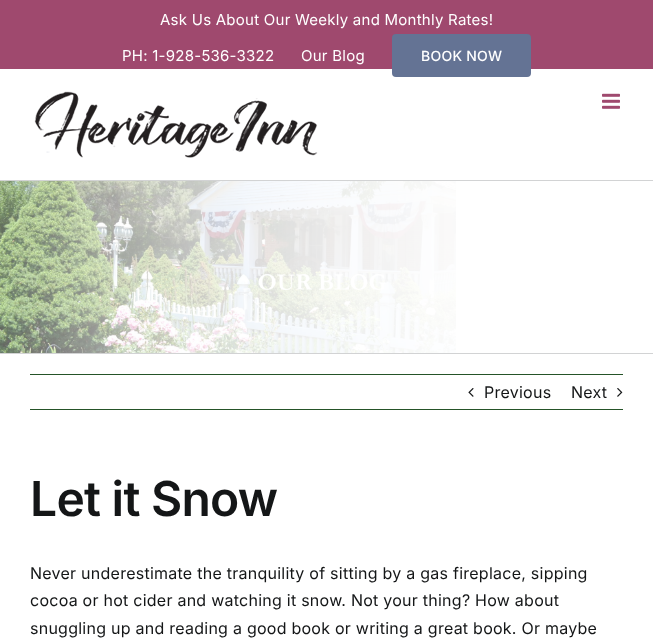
(async () => {
    const canvas = document.querySelector("canvas");
    canvas.width = 653;
    canvas.height = 641;
    const context = canvas.getContext("2d");
    context.miterLimit = 4;
    context.fontKerning = "normal";
    function write(s, x, y, font, color) {
        context.font = font;
        context.fillStyle = color;
        context.fillText(s, x, y);
    }
    function block(x, y, w, h, color) {
        context.fillStyle = color;
        context.fillRect(x, y, w, h);
    }
    function card(x, y, w, h, r, color) {
        context.fillStyle = color;
        context.beginPath();
        context.roundRect(x, y, w, h, r);
        context.fill();
    }
    async function photo(src, x, y, w, h) {
        const img = new Image();
        img.src = src;
        await img.decode();
        context.drawImage(img, x, y, w, h);
    }

    block(0, 0, 653, 641, "rgb(255, 255, 255)");
    block(0, 0, 653, 69, "rgb(159, 73, 110)");
    context.letterSpacing = "0.25px";
    write("Ask Us About Our Weekly and Monthly Rates!", 160, 25, "15px Inter", "rgb(255, 255, 255)");
    write("PH: 1-928-536-3322", 122, 61, "15px Inter", "rgb(255, 255, 255)");
    write("Our Blog", 301, 61, "15px Inter", "rgb(255, 255, 255)");
    card(392, 34, 139, 43, 4, "rgb(100, 115, 148)");
    write("BOOK NOW", 421, 61, "500 14px Inter", "rgb(255, 255, 255)");
    await photo("media/1.png", 34, 91, 284, 67);
    await photo("media/2.png", 602, 93, 18, 16);
    block(0, 180, 653, 1, "rgb(210, 211, 212)");
    block(0, 353, 653, 1, "rgb(210, 211, 212)");
    await photo("media/3.png", 0, 181, 456, 172);
    block(30, 374, 593, 1, "rgb(37, 83, 40)");
    block(30, 409, 593, 1, "rgb(37, 83, 40)");
    await photo("media/4.png", 468, 388, 6, 9);
    write("Previous", 484, 398, "16px Inter", "rgb(20, 22, 23)");
    write("Next", 571, 398, "16px Inter", "rgb(20, 22, 23)");
    await photo("media/5.png", 617, 388, 6, 9);
    context.letterSpacing = "-0.75px";
    write("Let it Snow", 30, 516, "600 48px Inter", "rgb(20, 22, 23)");
    context.letterSpacing = "0.25px";
    write("Never underestimate the tranquility of sitting by a gas fireplace, sipping", 30, 579, "16px Inter", "rgb(20, 22, 23)");
    write("cocoa or hot cider and watching it snow. Not your thing? How about", 30, 606, "16px Inter", "rgb(20, 22, 23)");
    write("snuggling up and reading a good book or writing a great book. Or maybe", 30, 634, "16px Inter", "rgb(20, 22, 23)");
})();
